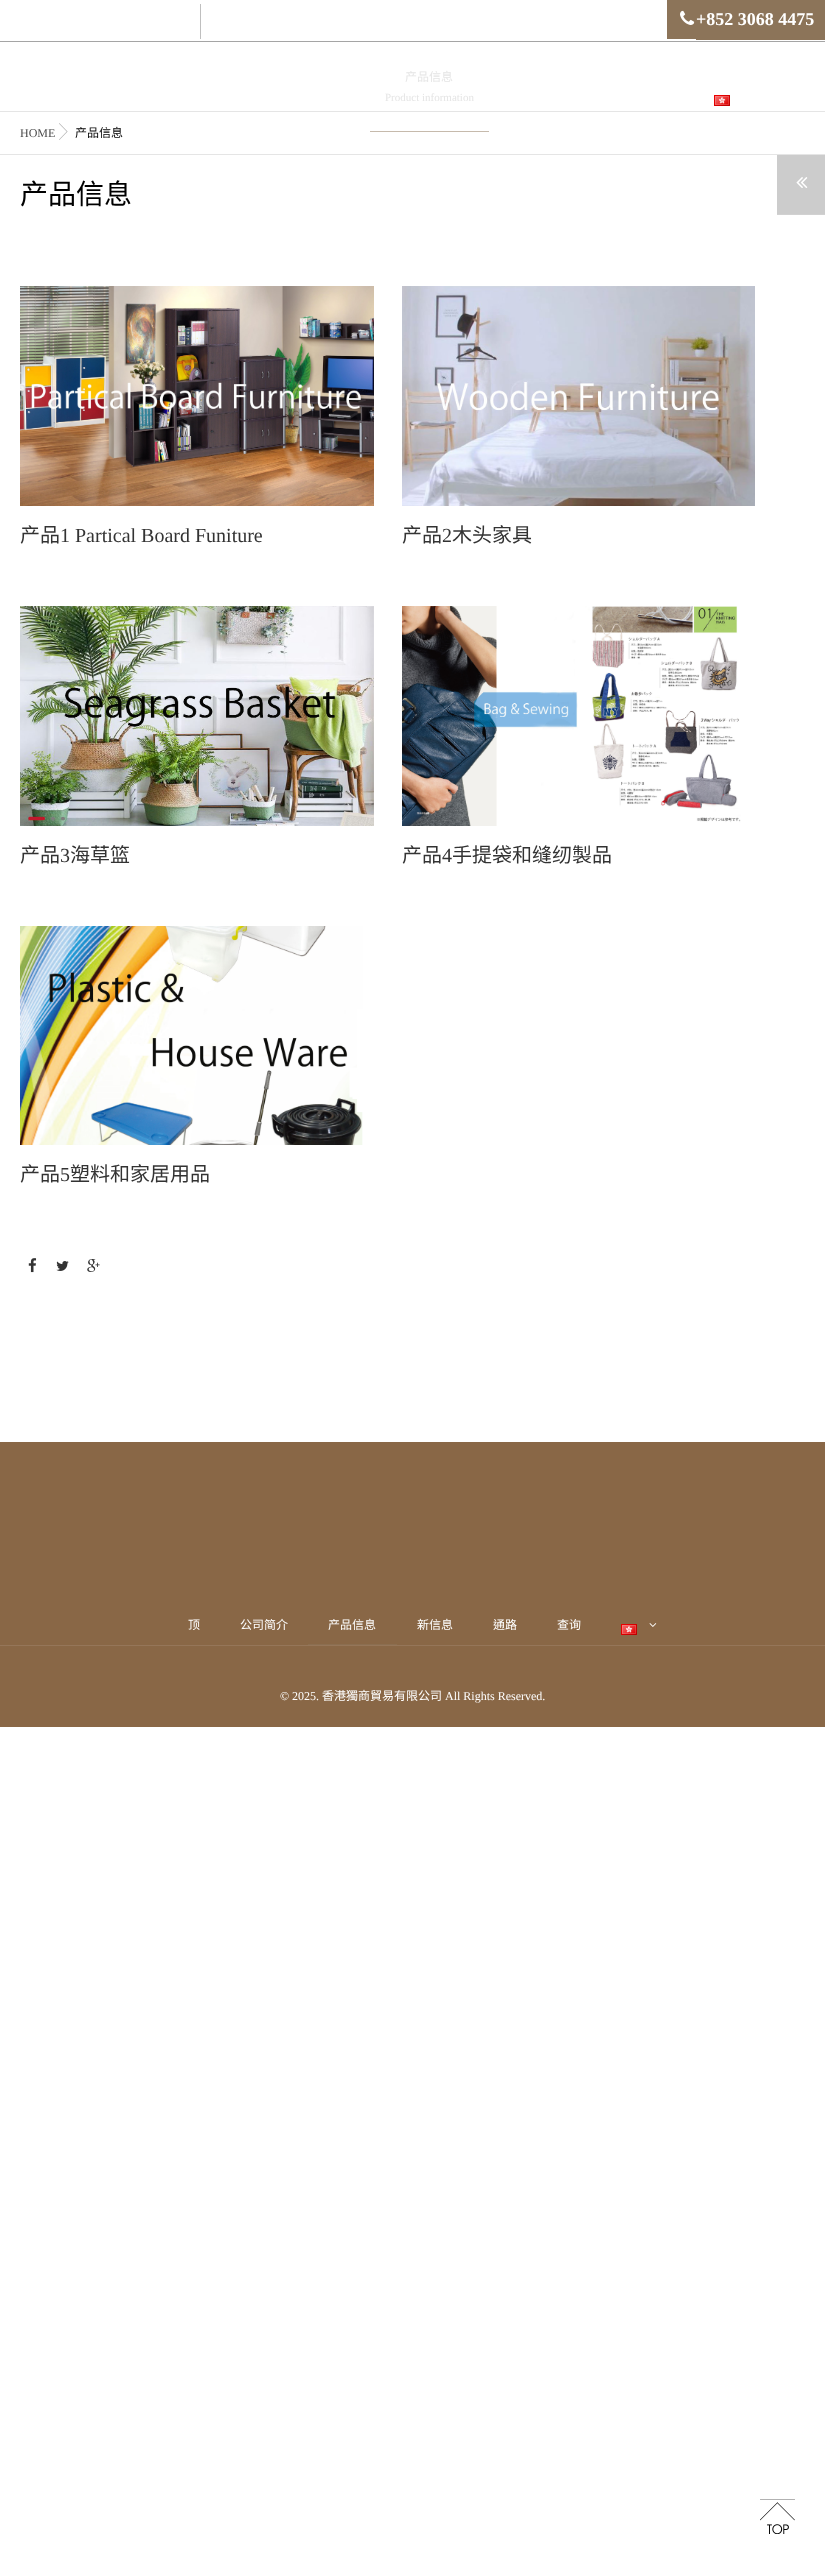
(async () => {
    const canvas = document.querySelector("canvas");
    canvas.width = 825;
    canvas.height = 2564;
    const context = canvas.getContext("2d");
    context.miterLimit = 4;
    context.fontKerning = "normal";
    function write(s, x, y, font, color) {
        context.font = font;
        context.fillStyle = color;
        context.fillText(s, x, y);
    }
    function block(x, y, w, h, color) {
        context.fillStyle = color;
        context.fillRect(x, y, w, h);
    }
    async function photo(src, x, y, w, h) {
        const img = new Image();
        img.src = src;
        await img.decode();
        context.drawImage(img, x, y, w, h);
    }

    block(0, 0, 825, 2564, "rgb(255, 255, 255)");
    block(0, 111, 825, 1, "rgb(229, 229, 229)");
    block(0, 41, 825, 1, "rgb(165, 165, 165)");
    block(200, 4, 1, 35, "rgb(191, 191, 191)");
    block(667, 0, 29, 39, "rgb(140, 116, 89)");
    block(696, 0, 129, 40, "rgb(140, 116, 89)");
    await photo("media/1.png", 680, 10, 15, 15);
    write("+852 3068 4475", 696, 25, "bold 18px Liberation Serif", "rgb(255, 255, 255)");
    write("产品信息", 405, 81, "12px Noto Sans CJK HK", "rgb(229, 229, 229)");
    write("Product information", 385, 101, "11px Liberation Serif", "rgb(229, 229, 229)");
    block(370, 131, 119, 1, "rgb(198, 186, 172)");
    await photo("media/2.png", 714, 95, 16, 11);
    block(0, 154, 825, 1, "rgb(229, 229, 229)");
    await photo("media/3.png", 59, 123, 9, 17);
    write("HOME", 20, 137, "12px Liberation Serif", "rgb(74, 74, 74)");
    await photo("media/4.png", 59, 123, 9, 17);
    write("产品信息", 75, 137, "12px Noto Sans CJK HK", "rgb(0, 0, 0)");
    write("产品信息", 20, 204, "28px Noto Sans CJK HK", "rgb(0, 0, 0)");
    await photo("media/5.png", 20, 286, 354, 220);
    write("产品", 20, 542, "20px Noto Sans CJK HK", "rgb(51, 51, 51)");
    write("1 Partical Board Funiture", 60, 542, "20px Liberation Serif", "rgb(51, 51, 51)");
    await photo("media/6.png", 402, 286, 353, 220);
    write("产品", 402, 542, "20px Noto Sans CJK HK", "rgb(51, 51, 51)");
    write("2", 442, 542, "20px Liberation Serif", "rgb(51, 51, 51)");
    write("木头家具", 452, 542, "20px Noto Sans CJK HK", "rgb(51, 51, 51)");
    await photo("media/7.png", 20, 606, 354, 220);
    write("产品", 20, 862, "20px Noto Sans CJK HK", "rgb(51, 51, 51)");
    write("3", 60, 862, "20px Liberation Serif", "rgb(51, 51, 51)");
    write("海草篮", 70, 862, "20px Noto Sans CJK HK", "rgb(51, 51, 51)");
    await photo("media/8.png", 402, 606, 339, 220);
    write("产品", 402, 862, "20px Noto Sans CJK HK", "rgb(51, 51, 51)");
    write("4", 442, 862, "20px Liberation Serif", "rgb(51, 51, 51)");
    write("手提袋和缝纫製品", 452, 862, "20px Noto Sans CJK HK", "rgb(51, 51, 51)");
    await photo("media/9.png", 20, 926, 343, 219);
    write("产品", 20, 1181, "20px Noto Sans CJK HK", "rgb(51, 51, 51)");
    write("5", 60, 1181, "20px Liberation Serif", "rgb(51, 51, 51)");
    write("塑料和家居用品", 70, 1181, "20px Noto Sans CJK HK", "rgb(51, 51, 51)");
    await photo("media/10.png", 28, 1258, 9, 15);
    await photo("media/11.png", 56, 1261, 13, 10);
    await photo("media/12.png", 87, 1259, 13, 13);
    block(777, 155, 48, 59, "rgb(204, 204, 204)");
    block(777, 214, 48, 1, "rgb(209, 209, 209)");
    await photo("media/13.png", 796, 177, 12, 11);
    block(0, 1442, 825, 285, "rgb(137, 103, 70)");
    block(0, 1645, 825, 1, "rgb(149, 118, 89)");
    write("顶", 188, 1629, "12px Noto Sans CJK HK", "rgb(255, 255, 255)");
    write("公司简介", 240, 1629, "12px Noto Sans CJK HK", "rgb(255, 255, 255)");
    write("产品信息", 328, 1629, "12px Noto Sans CJK HK", "rgb(255, 255, 255)");
    block(308, 1644, 89, 1, "rgb(139, 110, 80)");
    write("新信息", 417, 1629, "12px Noto Sans CJK HK", "rgb(255, 255, 255)");
    write("通路", 493, 1629, "12px Noto Sans CJK HK", "rgb(255, 255, 255)");
    write("查询", 557, 1629, "12px Noto Sans CJK HK", "rgb(255, 255, 255)");
    await photo("media/2.png", 621, 1624, 16, 11);
    await photo("media/14.png", 649, 1623, 8, 4);
    write("© 2025.", 280, 1700, "12px Liberation Serif", "rgb(255, 255, 255)");
    write("香港獨商貿易有限公司", 322, 1700, "12px Noto Sans CJK HK", "rgb(255, 255, 255)");
    write("All Rights Reserved.", 445, 1700, "12px Liberation Serif", "rgb(255, 255, 255)");
    await photo("media/15.png", 760, 2499, 35, 35);
})();
